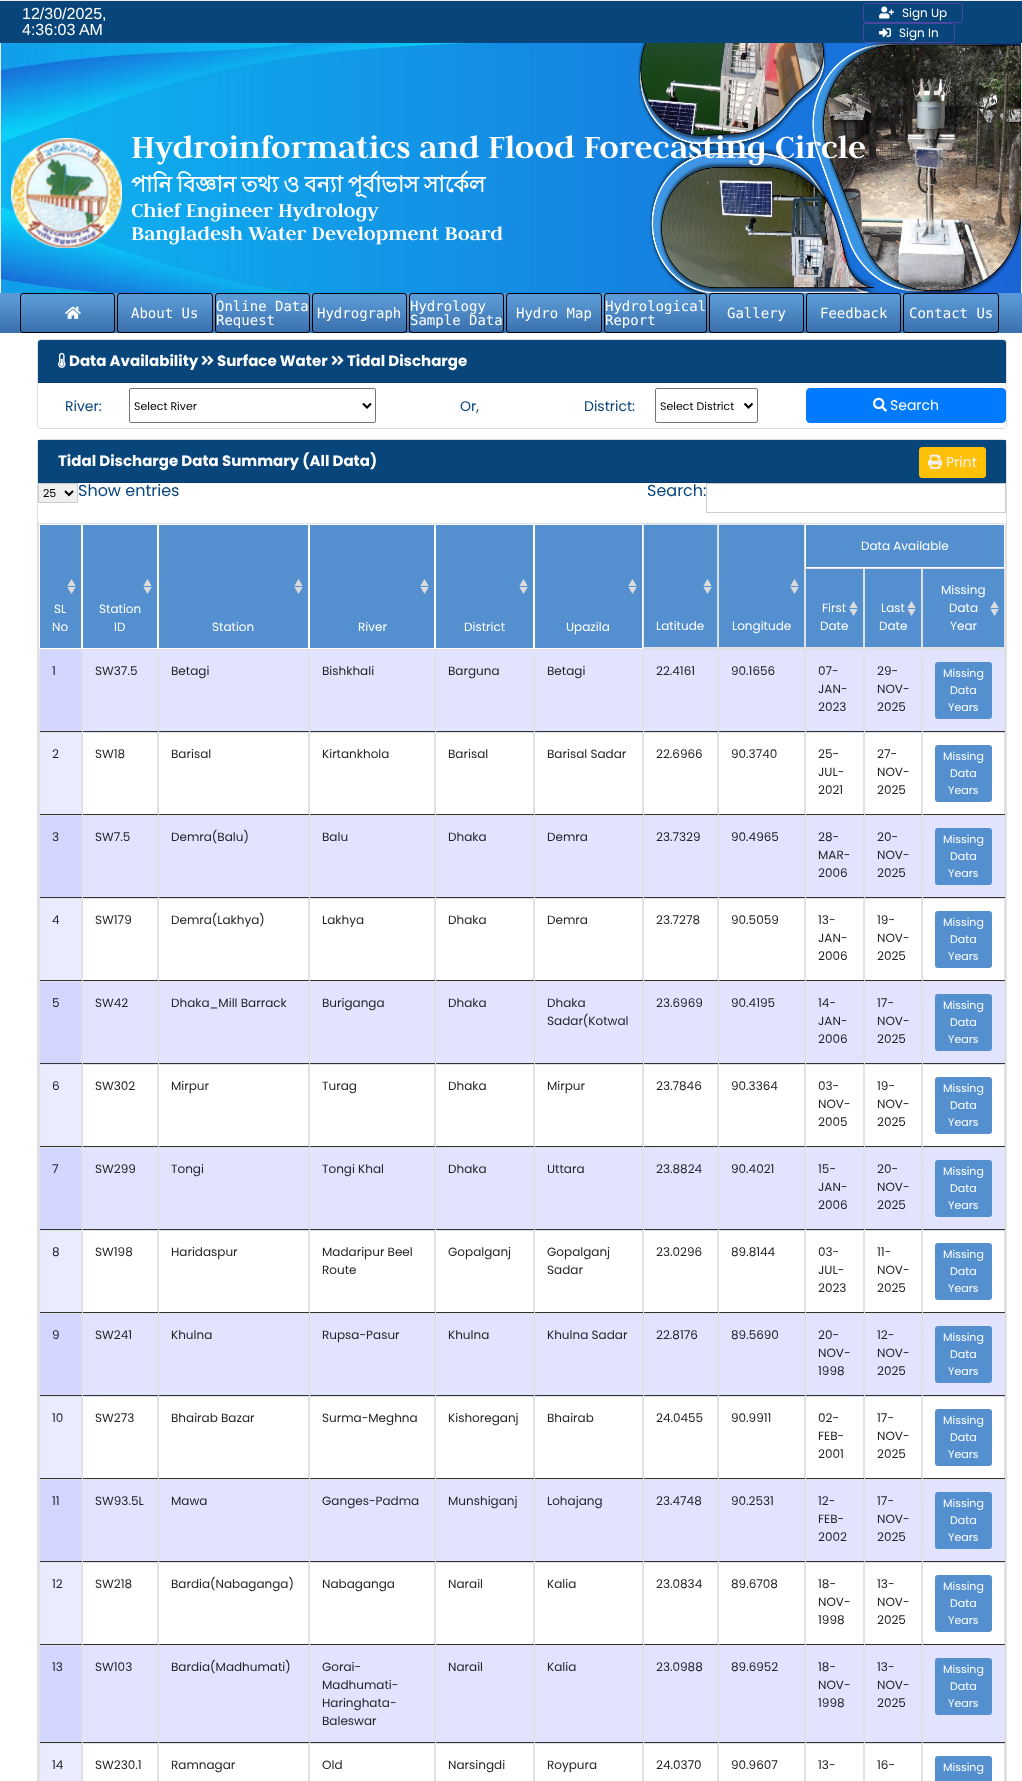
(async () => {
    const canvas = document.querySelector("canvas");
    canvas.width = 1022;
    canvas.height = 1781;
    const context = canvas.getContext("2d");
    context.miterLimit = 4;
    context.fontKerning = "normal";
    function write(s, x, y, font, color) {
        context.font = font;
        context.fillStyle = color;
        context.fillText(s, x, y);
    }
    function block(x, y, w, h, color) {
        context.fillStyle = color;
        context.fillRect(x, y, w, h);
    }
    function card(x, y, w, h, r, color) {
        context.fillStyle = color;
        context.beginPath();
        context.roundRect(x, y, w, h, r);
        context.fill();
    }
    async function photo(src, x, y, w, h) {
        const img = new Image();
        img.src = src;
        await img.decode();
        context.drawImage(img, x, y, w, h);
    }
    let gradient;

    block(0, 0, 1022, 1781, "rgb(255, 255, 255)");
    context.strokeStyle = "rgb(234, 234, 234)";
    context.strokeRect(0.5, 0.5, 1021, 278);
    block(0, 1, 1022, 42, "rgb(8, 69, 123)");
    write("12/30/2025,", 22, 19, "16px Liberation Sans", "rgb(255, 255, 255)");
    write("4:36:03 AM", 22, 35, "16px Liberation Sans", "rgb(255, 255, 255)");
    context.beginPath();
    context.roundRect(863.5, 3.5, 99, 19, 2.5);
    context.strokeStyle = "rgb(74, 71, 163)";
    context.stroke();
    await photo("media/1.png", 879, 6, 15, 13);
    write("Sign Up", 902, 17, "12px Poppins", "rgb(255, 255, 255)");
    context.beginPath();
    context.roundRect(863.5, 23.5, 91, 19, 2.5);
    context.stroke();
    await photo("media/2.png", 879, 28, 12, 10);
    write("Sign In", 899, 37, "12px Poppins", "rgb(255, 255, 255)");
    await photo("media/3.png", 1, 43, 1020, 250);
    await photo("media/4.png", 11, 138, 111, 110);
    write("Hydroinformatics and Flood Forecasting Circle", 131, 158, "bold 36px Judson", "rgb(255, 255, 255)");
    context.wordSpacing = "-1px";
    write("পানি বিজ্ঞান তথ্য ও বন্যা পূর্বাভাস সার্কেল", 131, 192, "bold 22px Lohit Bengali", "rgb(255, 255, 255)");
    context.wordSpacing = "0px";
    write("Chief Engineer Hydrology", 131, 217, "bold 22px Judson", "rgb(255, 255, 255)");
    write("Bangladesh Water Development Board", 131, 240, "bold 22px Judson", "rgb(255, 255, 255)");
    gradient = context.createLinearGradient(511, 293, 511, 333);
    gradient.addColorStop(0, "rgb(89, 153, 213)");
    gradient.addColorStop(0.14, "rgb(89, 153, 213)");
    gradient.addColorStop(1, "rgb(57, 111, 172)");
    context.fillStyle = gradient;
    context.fillRect(0, 293, 1022, 40);
    context.beginPath();
    context.roundRect(20.5, 293.5, 94, 39, 2.5);
    context.strokeStyle = "rgb(0, 0, 0)";
    context.stroke();
    await photo("media/5.png", 65, 306, 16, 13);
    context.beginPath();
    context.roundRect(117.5, 293.5, 95, 39, 2.5);
    context.stroke();
    write("About Us", 131, 318, "14px DejaVu Sans Mono", "rgb(255, 255, 255)");
    context.beginPath();
    context.roundRect(215.5, 293.5, 94, 39, 2.5);
    context.stroke();
    write("Online Data", 216, 311, "14px DejaVu Sans Mono", "rgb(255, 255, 255)");
    write("Request", 216, 325, "14px DejaVu Sans Mono", "rgb(255, 255, 255)");
    context.beginPath();
    context.roundRect(312.5, 293.5, 94, 39, 2.5);
    context.stroke();
    write("Hydrograph", 317, 318, "14px DejaVu Sans Mono", "rgb(255, 255, 255)");
    context.beginPath();
    context.roundRect(409.5, 293.5, 94, 39, 2.5);
    context.stroke();
    write("Hydrology", 410, 311, "14px DejaVu Sans Mono", "rgb(255, 255, 255)");
    write("Sample Data", 410, 325, "14px DejaVu Sans Mono", "rgb(255, 255, 255)");
    context.beginPath();
    context.roundRect(506.5, 293.5, 95, 39, 2.5);
    context.stroke();
    write("Hydro Map", 516, 318, "14px DejaVu Sans Mono", "rgb(255, 255, 255)");
    context.beginPath();
    context.roundRect(604.5, 293.5, 102, 39, 2.5);
    context.stroke();
    write("Hydrological", 605, 311, "14px DejaVu Sans Mono", "rgb(255, 255, 255)");
    write("Report", 605, 325, "14px DejaVu Sans Mono", "rgb(255, 255, 255)");
    context.beginPath();
    context.roundRect(709.5, 293.5, 94, 39, 2.5);
    context.stroke();
    write("Gallery", 727, 318, "14px DejaVu Sans Mono", "rgb(255, 255, 255)");
    context.beginPath();
    context.roundRect(806.5, 293.5, 94, 39, 2.5);
    context.stroke();
    write("Feedback", 820, 318, "14px DejaVu Sans Mono", "rgb(255, 255, 255)");
    context.beginPath();
    context.roundRect(903.5, 293.5, 95, 39, 2.5);
    context.stroke();
    write("Contact Us", 909, 318, "14px DejaVu Sans Mono", "rgb(255, 255, 255)");
    context.beginPath();
    context.roundRect(37.5, 339.5, 969, 89, 3.5);
    context.strokeStyle = "rgb(223, 223, 223)";
    context.stroke();
    context.fillStyle = "rgb(8, 69, 123)";
    context.beginPath();
    context.roundRect(38, 340, 968, 43, [3, 3, 0, 0]);
    context.fill();
    block(38, 382, 968, 1, "rgb(7, 60, 108)");
    await photo("media/6.png", 58, 352, 8, 16);
    write("Data Availability", 69, 366, "bold 15px Poppins", "rgb(255, 255, 255)");
    await photo("media/7.png", 201, 355, 13, 10);
    write("Surface Water", 217, 366, "bold 15px Poppins", "rgb(255, 255, 255)");
    await photo("media/7.png", 331, 355, 13, 10);
    write("Tidal Discharge", 347, 366, "bold 15px Poppins", "rgb(255, 255, 255)");
    write("River:", 65, 411, "14px Poppins", "rgb(8, 69, 123)");
    context.beginPath();
    context.roundRect(129.5, 388.5, 246, 34, 1.5);
    context.strokeStyle = "rgb(118, 118, 118)";
    context.stroke();
    context.beginPath();
    context.moveTo(363, 403.5);
    context.lineTo(367, 407.5);
    context.lineTo(371, 403.5);
    context.strokeStyle = "rgb(0, 0, 0)";
    context.lineWidth = 2;
    context.stroke();
    write("Select River", 134, 410, "11px Poppins", "rgb(0, 0, 0)");
    write("Or,", 460, 411, "14px Poppins", "rgb(8, 69, 123)");
    write("District:", 584, 411, "14px Poppins", "rgb(8, 69, 123)");
    context.beginPath();
    context.roundRect(655.5, 388.5, 102, 34, 1.5);
    context.strokeStyle = "rgb(118, 118, 118)";
    context.lineWidth = 1;
    context.stroke();
    context.beginPath();
    context.moveTo(744.5, 403.5);
    context.lineTo(748.5, 407.5);
    context.lineTo(752.5, 403.5);
    context.strokeStyle = "rgb(0, 0, 0)";
    context.lineWidth = 2;
    context.stroke();
    write("Select District", 660, 410, "11px Poppins", "rgb(0, 0, 0)");
    context.fillStyle = "rgb(0, 123, 255)";
    context.beginPath();
    context.roundRect(806.5, 388.5, 199, 34, 3.5);
    context.fill();
    context.strokeStyle = "rgb(0, 123, 255)";
    context.lineWidth = 1;
    context.stroke();
    await photo("media/8.png", 873, 397, 14, 15);
    write("Search", 890, 410, "14px Poppins", "rgb(255, 255, 255)");
    context.beginPath();
    context.roundRect(37.5, 439.5, 969, 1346, 3.5);
    context.strokeStyle = "rgb(223, 223, 223)";
    context.stroke();
    block(38, 440, 968, 42, "rgb(8, 69, 123)");
    block(38, 482, 968, 1, "rgb(7, 60, 108)");
    write("Tidal Discharge Data Summary (All Data)", 58, 466, "bold 15px Poppins", "rgb(255, 255, 255)");
    context.fillStyle = "rgb(255, 193, 7)";
    context.beginPath();
    context.roundRect(919.5, 447.5, 66, 30, 2.5);
    context.fill();
    context.strokeStyle = "rgb(255, 193, 7)";
    context.stroke();
    await photo("media/9.png", 928, 454, 14, 15);
    write("Print", 946, 467, "14px Poppins", "rgb(241, 241, 241)");
    context.fillStyle = "rgb(239, 239, 239)";
    context.beginPath();
    context.rect(38.5, 483.5, 39, 19);
    context.fill();
    context.strokeStyle = "rgb(204, 204, 204)";
    context.stroke();
    context.beginPath();
    context.moveTo(65, 491);
    context.lineTo(69, 495);
    context.lineTo(73, 491);
    context.strokeStyle = "rgb(0, 0, 0)";
    context.lineWidth = 2;
    context.stroke();
    write("25", 43, 497, "11px Poppins", "rgb(0, 0, 0)");
    write("Show entries", 78, 496, "16px Poppins", "rgb(8, 69, 123)");
    write("Search:", 647, 496, "16px Poppins", "rgb(8, 69, 123)");
    context.strokeStyle = "rgb(204, 204, 204)";
    context.lineWidth = 1;
    context.strokeRect(706.5, 483.5, 299, 29);
    context.strokeStyle = "rgb(222, 226, 230)";
    context.strokeRect(38.5, 523.5, 967, 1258);
    block(40, 525, 964, 123, "rgb(84, 144, 207)");
    context.strokeStyle = "rgb(255, 255, 255)";
    context.strokeRect(805.5, 524.5, 199, 43);
    write("Data Available", 861, 550, "12px Poppins", "rgb(255, 255, 255)");
    await photo("media/10.png", 67, 579, 9, 15);
    context.strokeRect(39.5, 524.5, 42, 124);
    write("SL", 54, 613, "12px Poppins", "rgb(255, 255, 255)");
    write("No", 52, 631, "12px Poppins", "rgb(255, 255, 255)");
    await photo("media/10.png", 143, 579, 9, 15);
    context.strokeRect(82.5, 524.5, 75, 124);
    write("Station", 99, 613, "12px Poppins", "rgb(255, 255, 255)");
    write("ID", 114, 631, "12px Poppins", "rgb(255, 255, 255)");
    await photo("media/10.png", 294, 579, 9, 15);
    context.strokeRect(158.5, 524.5, 150, 124);
    write("Station", 212, 631, "12px Poppins", "rgb(255, 255, 255)");
    await photo("media/10.png", 420, 579, 9, 15);
    context.strokeRect(309.5, 524.5, 125, 124);
    write("River", 358, 631, "12px Poppins", "rgb(255, 255, 255)");
    await photo("media/10.png", 519, 579, 9, 15);
    context.strokeRect(435.5, 524.5, 98, 124);
    write("District", 464, 631, "12px Poppins", "rgb(255, 255, 255)");
    await photo("media/10.png", 628, 579, 9, 15);
    context.strokeRect(534.5, 524.5, 108, 124);
    write("Upazila", 566, 631, "12px Poppins", "rgb(255, 255, 255)");
    await photo("media/10.png", 703, 579, 9, 15);
    block(643, 524, 162, 1, "rgb(222, 226, 230)");
    block(717, 524, 1, 125, "rgb(222, 226, 230)");
    block(643, 647, 75, 2, "rgb(222, 226, 230)");
    block(643, 524, 1, 125, "rgb(222, 226, 230)");
    write("Latitude", 656, 630, "12px Poppins", "rgb(255, 255, 255)");
    await photo("media/10.png", 790, 579, 9, 15);
    block(804, 524, 1, 125, "rgb(222, 226, 230)");
    block(718, 647, 87, 2, "rgb(222, 226, 230)");
    block(718, 524, 1, 125, "rgb(222, 226, 230)");
    write("Longitude", 732, 630, "12px Poppins", "rgb(255, 255, 255)");
    await photo("media/10.png", 849, 601, 9, 15);
    block(805, 568, 200, 1, "rgb(222, 226, 230)");
    block(863, 568, 1, 81, "rgb(222, 226, 230)");
    block(805, 647, 59, 2, "rgb(222, 226, 230)");
    block(805, 568, 1, 81, "rgb(222, 226, 230)");
    write("First", 822, 612, "12px Poppins", "rgb(255, 255, 255)");
    write("Date", 820, 630, "12px Poppins", "rgb(255, 255, 255)");
    await photo("media/10.png", 907, 601, 9, 15);
    block(921, 568, 1, 81, "rgb(222, 226, 230)");
    block(864, 647, 58, 2, "rgb(222, 226, 230)");
    block(864, 568, 1, 81, "rgb(222, 226, 230)");
    write("Last", 881, 612, "12px Poppins", "rgb(255, 255, 255)");
    write("Date", 879, 630, "12px Poppins", "rgb(255, 255, 255)");
    await photo("media/10.png", 990, 601, 9, 15);
    block(1004, 568, 1, 81, "rgb(222, 226, 230)");
    block(922, 647, 83, 2, "rgb(222, 226, 230)");
    block(922, 568, 1, 81, "rgb(222, 226, 230)");
    write("Missing", 941, 594, "12px Poppins", "rgb(255, 255, 255)");
    write("Data", 949, 612, "12px Poppins", "rgb(255, 255, 255)");
    write("Year", 950, 630, "12px Poppins", "rgb(255, 255, 255)");
    block(83, 650, 921, 81, "rgb(226, 228, 255)");
    block(40, 650, 41, 81, "rgb(211, 214, 255)");
    block(39, 649, 966, 1, "rgb(222, 226, 230)");
    block(81, 649, 1, 83, "rgb(222, 226, 230)");
    block(39, 731, 43, 1, "rgb(51, 51, 51)");
    block(39, 649, 1, 83, "rgb(222, 226, 230)");
    write("1", 52, 675, "12px Poppins", "rgb(33, 37, 41)");
    block(157, 649, 1, 83, "rgb(222, 226, 230)");
    block(82, 731, 76, 1, "rgb(51, 51, 51)");
    block(82, 649, 1, 83, "rgb(222, 226, 230)");
    write("SW37.5", 95, 675, "12px Poppins", "rgb(33, 37, 41)");
    block(308, 649, 1, 83, "rgb(222, 226, 230)");
    block(158, 731, 151, 1, "rgb(51, 51, 51)");
    block(158, 649, 1, 83, "rgb(222, 226, 230)");
    write("Betagi", 171, 675, "12px Poppins", "rgb(33, 37, 41)");
    block(434, 649, 1, 83, "rgb(222, 226, 230)");
    block(309, 731, 126, 1, "rgb(51, 51, 51)");
    block(309, 649, 1, 83, "rgb(222, 226, 230)");
    write("Bishkhali", 322, 675, "12px Poppins", "rgb(33, 37, 41)");
    block(533, 649, 1, 83, "rgb(222, 226, 230)");
    block(435, 731, 99, 1, "rgb(51, 51, 51)");
    block(435, 649, 1, 83, "rgb(222, 226, 230)");
    write("Barguna", 448, 675, "12px Poppins", "rgb(33, 37, 41)");
    block(642, 649, 1, 83, "rgb(222, 226, 230)");
    block(534, 731, 109, 1, "rgb(51, 51, 51)");
    block(534, 649, 1, 83, "rgb(222, 226, 230)");
    write("Betagi", 547, 675, "12px Poppins", "rgb(33, 37, 41)");
    block(717, 649, 1, 83, "rgb(222, 226, 230)");
    block(643, 731, 75, 1, "rgb(51, 51, 51)");
    block(643, 649, 1, 83, "rgb(222, 226, 230)");
    write("22.4161", 656, 675, "12px Poppins", "rgb(33, 37, 41)");
    block(804, 649, 1, 83, "rgb(222, 226, 230)");
    block(718, 731, 87, 1, "rgb(51, 51, 51)");
    block(718, 649, 1, 83, "rgb(222, 226, 230)");
    write("90.1656", 731, 675, "12px Poppins", "rgb(33, 37, 41)");
    block(863, 649, 1, 83, "rgb(222, 226, 230)");
    block(805, 731, 59, 1, "rgb(51, 51, 51)");
    block(805, 649, 1, 83, "rgb(222, 226, 230)");
    write("07-", 818, 675, "12px Poppins", "rgb(33, 37, 41)");
    write("JAN-", 818, 693, "12px Poppins", "rgb(33, 37, 41)");
    write("2023", 818, 711, "12px Poppins", "rgb(33, 37, 41)");
    block(921, 649, 1, 83, "rgb(222, 226, 230)");
    block(864, 731, 58, 1, "rgb(51, 51, 51)");
    block(864, 649, 1, 83, "rgb(222, 226, 230)");
    write("29-", 877, 675, "12px Poppins", "rgb(33, 37, 41)");
    write("NOV-", 877, 693, "12px Poppins", "rgb(33, 37, 41)");
    write("2025", 877, 711, "12px Poppins", "rgb(33, 37, 41)");
    block(1004, 649, 1, 83, "rgb(222, 226, 230)");
    block(922, 731, 83, 1, "rgb(51, 51, 51)");
    block(922, 649, 1, 83, "rgb(222, 226, 230)");
    card(935, 662, 57, 57, 3, "rgb(84, 144, 207)");
    write("Missing", 943, 677, "11px Poppins", "rgb(255, 255, 255)");
    write("Data", 950, 694, "11px Poppins", "rgb(255, 255, 255)");
    write("Years", 948, 711, "11px Poppins", "rgb(255, 255, 255)");
    block(40, 733, 41, 81, "rgb(234, 235, 255)");
    block(39, 732, 966, 1, "rgb(222, 226, 230)");
    block(81, 732, 1, 83, "rgb(222, 226, 230)");
    block(39, 814, 43, 1, "rgb(51, 51, 51)");
    block(39, 732, 1, 83, "rgb(222, 226, 230)");
    write("2", 52, 758, "12px Poppins", "rgb(33, 37, 41)");
    block(157, 732, 1, 83, "rgb(222, 226, 230)");
    block(82, 814, 76, 1, "rgb(51, 51, 51)");
    block(82, 732, 1, 83, "rgb(222, 226, 230)");
    write("SW18", 95, 758, "12px Poppins", "rgb(33, 37, 41)");
    block(308, 732, 1, 83, "rgb(222, 226, 230)");
    block(158, 814, 151, 1, "rgb(51, 51, 51)");
    block(158, 732, 1, 83, "rgb(222, 226, 230)");
    write("Barisal", 171, 758, "12px Poppins", "rgb(33, 37, 41)");
    block(434, 732, 1, 83, "rgb(222, 226, 230)");
    block(309, 814, 126, 1, "rgb(51, 51, 51)");
    block(309, 732, 1, 83, "rgb(222, 226, 230)");
    write("Kirtankhola", 322, 758, "12px Poppins", "rgb(33, 37, 41)");
    block(533, 732, 1, 83, "rgb(222, 226, 230)");
    block(435, 814, 99, 1, "rgb(51, 51, 51)");
    block(435, 732, 1, 83, "rgb(222, 226, 230)");
    write("Barisal", 448, 758, "12px Poppins", "rgb(33, 37, 41)");
    block(642, 732, 1, 83, "rgb(222, 226, 230)");
    block(534, 814, 109, 1, "rgb(51, 51, 51)");
    block(534, 732, 1, 83, "rgb(222, 226, 230)");
    write("Barisal Sadar", 547, 758, "12px Poppins", "rgb(33, 37, 41)");
    block(717, 732, 1, 83, "rgb(222, 226, 230)");
    block(643, 814, 75, 1, "rgb(51, 51, 51)");
    block(643, 732, 1, 83, "rgb(222, 226, 230)");
    write("22.6966", 656, 758, "12px Poppins", "rgb(33, 37, 41)");
    block(804, 732, 1, 83, "rgb(222, 226, 230)");
    block(718, 814, 87, 1, "rgb(51, 51, 51)");
    block(718, 732, 1, 83, "rgb(222, 226, 230)");
    write("90.3740", 731, 758, "12px Poppins", "rgb(33, 37, 41)");
    block(863, 732, 1, 83, "rgb(222, 226, 230)");
    block(805, 814, 59, 1, "rgb(51, 51, 51)");
    block(805, 732, 1, 83, "rgb(222, 226, 230)");
    write("25-", 818, 758, "12px Poppins", "rgb(33, 37, 41)");
    write("JUL-", 818, 776, "12px Poppins", "rgb(33, 37, 41)");
    write("2021", 818, 794, "12px Poppins", "rgb(33, 37, 41)");
    block(921, 732, 1, 83, "rgb(222, 226, 230)");
    block(864, 814, 58, 1, "rgb(51, 51, 51)");
    block(864, 732, 1, 83, "rgb(222, 226, 230)");
    write("27-", 877, 758, "12px Poppins", "rgb(33, 37, 41)");
    write("NOV-", 877, 776, "12px Poppins", "rgb(33, 37, 41)");
    write("2025", 877, 794, "12px Poppins", "rgb(33, 37, 41)");
    block(1004, 732, 1, 83, "rgb(222, 226, 230)");
    block(922, 814, 83, 1, "rgb(51, 51, 51)");
    block(922, 732, 1, 83, "rgb(222, 226, 230)");
    card(935, 745, 57, 57, 3, "rgb(84, 144, 207)");
    write("Missing", 943, 760, "11px Poppins", "rgb(255, 255, 255)");
    write("Data", 950, 777, "11px Poppins", "rgb(255, 255, 255)");
    write("Years", 948, 794, "11px Poppins", "rgb(255, 255, 255)");
    block(83, 816, 921, 81, "rgb(226, 228, 255)");
    block(40, 816, 41, 81, "rgb(211, 214, 255)");
    block(39, 815, 966, 1, "rgb(222, 226, 230)");
    block(81, 815, 1, 83, "rgb(222, 226, 230)");
    block(39, 897, 43, 1, "rgb(51, 51, 51)");
    block(39, 815, 1, 83, "rgb(222, 226, 230)");
    write("3", 52, 841, "12px Poppins", "rgb(33, 37, 41)");
    block(157, 815, 1, 83, "rgb(222, 226, 230)");
    block(82, 897, 76, 1, "rgb(51, 51, 51)");
    block(82, 815, 1, 83, "rgb(222, 226, 230)");
    write("SW7.5", 95, 841, "12px Poppins", "rgb(33, 37, 41)");
    block(308, 815, 1, 83, "rgb(222, 226, 230)");
    block(158, 897, 151, 1, "rgb(51, 51, 51)");
    block(158, 815, 1, 83, "rgb(222, 226, 230)");
    write("Demra(Balu)", 171, 841, "12px Poppins", "rgb(33, 37, 41)");
    block(434, 815, 1, 83, "rgb(222, 226, 230)");
    block(309, 897, 126, 1, "rgb(51, 51, 51)");
    block(309, 815, 1, 83, "rgb(222, 226, 230)");
    write("Balu", 322, 841, "12px Poppins", "rgb(33, 37, 41)");
    block(533, 815, 1, 83, "rgb(222, 226, 230)");
    block(435, 897, 99, 1, "rgb(51, 51, 51)");
    block(435, 815, 1, 83, "rgb(222, 226, 230)");
    write("Dhaka", 448, 841, "12px Poppins", "rgb(33, 37, 41)");
    block(642, 815, 1, 83, "rgb(222, 226, 230)");
    block(534, 897, 109, 1, "rgb(51, 51, 51)");
    block(534, 815, 1, 83, "rgb(222, 226, 230)");
    write("Demra", 547, 841, "12px Poppins", "rgb(33, 37, 41)");
    block(717, 815, 1, 83, "rgb(222, 226, 230)");
    block(643, 897, 75, 1, "rgb(51, 51, 51)");
    block(643, 815, 1, 83, "rgb(222, 226, 230)");
    write("23.7329", 656, 841, "12px Poppins", "rgb(33, 37, 41)");
    block(804, 815, 1, 83, "rgb(222, 226, 230)");
    block(718, 897, 87, 1, "rgb(51, 51, 51)");
    block(718, 815, 1, 83, "rgb(222, 226, 230)");
    write("90.4965", 731, 841, "12px Poppins", "rgb(33, 37, 41)");
    block(863, 815, 1, 83, "rgb(222, 226, 230)");
    block(805, 897, 59, 1, "rgb(51, 51, 51)");
    block(805, 815, 1, 83, "rgb(222, 226, 230)");
    write("28-", 818, 841, "12px Poppins", "rgb(33, 37, 41)");
    write("MAR-", 818, 859, "12px Poppins", "rgb(33, 37, 41)");
    write("2006", 818, 877, "12px Poppins", "rgb(33, 37, 41)");
    block(921, 815, 1, 83, "rgb(222, 226, 230)");
    block(864, 897, 58, 1, "rgb(51, 51, 51)");
    block(864, 815, 1, 83, "rgb(222, 226, 230)");
    write("20-", 877, 841, "12px Poppins", "rgb(33, 37, 41)");
    write("NOV-", 877, 859, "12px Poppins", "rgb(33, 37, 41)");
    write("2025", 877, 877, "12px Poppins", "rgb(33, 37, 41)");
    block(1004, 815, 1, 83, "rgb(222, 226, 230)");
    block(922, 897, 83, 1, "rgb(51, 51, 51)");
    block(922, 815, 1, 83, "rgb(222, 226, 230)");
    card(935, 828, 57, 57, 3, "rgb(84, 144, 207)");
    write("Missing", 943, 843, "11px Poppins", "rgb(255, 255, 255)");
    write("Data", 950, 860, "11px Poppins", "rgb(255, 255, 255)");
    write("Years", 948, 877, "11px Poppins", "rgb(255, 255, 255)");
    block(40, 899, 41, 81, "rgb(234, 235, 255)");
    block(39, 898, 966, 1, "rgb(222, 226, 230)");
    block(81, 898, 1, 83, "rgb(222, 226, 230)");
    block(39, 980, 43, 1, "rgb(51, 51, 51)");
    block(39, 898, 1, 83, "rgb(222, 226, 230)");
    write("4", 52, 924, "12px Poppins", "rgb(33, 37, 41)");
    block(157, 898, 1, 83, "rgb(222, 226, 230)");
    block(82, 980, 76, 1, "rgb(51, 51, 51)");
    block(82, 898, 1, 83, "rgb(222, 226, 230)");
    write("SW179", 95, 924, "12px Poppins", "rgb(33, 37, 41)");
    block(308, 898, 1, 83, "rgb(222, 226, 230)");
    block(158, 980, 151, 1, "rgb(51, 51, 51)");
    block(158, 898, 1, 83, "rgb(222, 226, 230)");
    write("Demra(Lakhya)", 171, 924, "12px Poppins", "rgb(33, 37, 41)");
    block(434, 898, 1, 83, "rgb(222, 226, 230)");
    block(309, 980, 126, 1, "rgb(51, 51, 51)");
    block(309, 898, 1, 83, "rgb(222, 226, 230)");
    write("Lakhya", 322, 924, "12px Poppins", "rgb(33, 37, 41)");
    block(533, 898, 1, 83, "rgb(222, 226, 230)");
    block(435, 980, 99, 1, "rgb(51, 51, 51)");
    block(435, 898, 1, 83, "rgb(222, 226, 230)");
    write("Dhaka", 448, 924, "12px Poppins", "rgb(33, 37, 41)");
    block(642, 898, 1, 83, "rgb(222, 226, 230)");
    block(534, 980, 109, 1, "rgb(51, 51, 51)");
    block(534, 898, 1, 83, "rgb(222, 226, 230)");
    write("Demra", 547, 924, "12px Poppins", "rgb(33, 37, 41)");
    block(717, 898, 1, 83, "rgb(222, 226, 230)");
    block(643, 980, 75, 1, "rgb(51, 51, 51)");
    block(643, 898, 1, 83, "rgb(222, 226, 230)");
    write("23.7278", 656, 924, "12px Poppins", "rgb(33, 37, 41)");
    block(804, 898, 1, 83, "rgb(222, 226, 230)");
    block(718, 980, 87, 1, "rgb(51, 51, 51)");
    block(718, 898, 1, 83, "rgb(222, 226, 230)");
    write("90.5059", 731, 924, "12px Poppins", "rgb(33, 37, 41)");
    block(863, 898, 1, 83, "rgb(222, 226, 230)");
    block(805, 980, 59, 1, "rgb(51, 51, 51)");
    block(805, 898, 1, 83, "rgb(222, 226, 230)");
    write("13-", 818, 924, "12px Poppins", "rgb(33, 37, 41)");
    write("JAN-", 818, 942, "12px Poppins", "rgb(33, 37, 41)");
    write("2006", 818, 960, "12px Poppins", "rgb(33, 37, 41)");
    block(921, 898, 1, 83, "rgb(222, 226, 230)");
    block(864, 980, 58, 1, "rgb(51, 51, 51)");
    block(864, 898, 1, 83, "rgb(222, 226, 230)");
    write("19-", 877, 924, "12px Poppins", "rgb(33, 37, 41)");
    write("NOV-", 877, 942, "12px Poppins", "rgb(33, 37, 41)");
    write("2025", 877, 960, "12px Poppins", "rgb(33, 37, 41)");
    block(1004, 898, 1, 83, "rgb(222, 226, 230)");
    block(922, 980, 83, 1, "rgb(51, 51, 51)");
    block(922, 898, 1, 83, "rgb(222, 226, 230)");
    card(935, 911, 57, 57, 3, "rgb(84, 144, 207)");
    write("Missing", 943, 926, "11px Poppins", "rgb(255, 255, 255)");
    write("Data", 950, 943, "11px Poppins", "rgb(255, 255, 255)");
    write("Years", 948, 960, "11px Poppins", "rgb(255, 255, 255)");
    block(83, 982, 921, 81, "rgb(226, 228, 255)");
    block(40, 982, 41, 81, "rgb(211, 214, 255)");
    block(39, 981, 966, 1, "rgb(222, 226, 230)");
    block(81, 981, 1, 83, "rgb(222, 226, 230)");
    block(39, 1063, 43, 1, "rgb(51, 51, 51)");
    block(39, 981, 1, 83, "rgb(222, 226, 230)");
    write("5", 52, 1007, "12px Poppins", "rgb(33, 37, 41)");
    block(157, 981, 1, 83, "rgb(222, 226, 230)");
    block(82, 1063, 76, 1, "rgb(51, 51, 51)");
    block(82, 981, 1, 83, "rgb(222, 226, 230)");
    write("SW42", 95, 1007, "12px Poppins", "rgb(33, 37, 41)");
    block(308, 981, 1, 83, "rgb(222, 226, 230)");
    block(158, 1063, 151, 1, "rgb(51, 51, 51)");
    block(158, 981, 1, 83, "rgb(222, 226, 230)");
    write("Dhaka_Mill Barrack", 171, 1007, "12px Poppins", "rgb(33, 37, 41)");
    block(434, 981, 1, 83, "rgb(222, 226, 230)");
    block(309, 1063, 126, 1, "rgb(51, 51, 51)");
    block(309, 981, 1, 83, "rgb(222, 226, 230)");
    write("Buriganga", 322, 1007, "12px Poppins", "rgb(33, 37, 41)");
    block(533, 981, 1, 83, "rgb(222, 226, 230)");
    block(435, 1063, 99, 1, "rgb(51, 51, 51)");
    block(435, 981, 1, 83, "rgb(222, 226, 230)");
    write("Dhaka", 448, 1007, "12px Poppins", "rgb(33, 37, 41)");
    block(642, 981, 1, 83, "rgb(222, 226, 230)");
    block(534, 1063, 109, 1, "rgb(51, 51, 51)");
    block(534, 981, 1, 83, "rgb(222, 226, 230)");
    write("Dhaka", 547, 1007, "12px Poppins", "rgb(33, 37, 41)");
    write("Sadar(Kotwal", 547, 1025, "12px Poppins", "rgb(33, 37, 41)");
    block(717, 981, 1, 83, "rgb(222, 226, 230)");
    block(643, 1063, 75, 1, "rgb(51, 51, 51)");
    block(643, 981, 1, 83, "rgb(222, 226, 230)");
    write("23.6969", 656, 1007, "12px Poppins", "rgb(33, 37, 41)");
    block(804, 981, 1, 83, "rgb(222, 226, 230)");
    block(718, 1063, 87, 1, "rgb(51, 51, 51)");
    block(718, 981, 1, 83, "rgb(222, 226, 230)");
    write("90.4195", 731, 1007, "12px Poppins", "rgb(33, 37, 41)");
    block(863, 981, 1, 83, "rgb(222, 226, 230)");
    block(805, 1063, 59, 1, "rgb(51, 51, 51)");
    block(805, 981, 1, 83, "rgb(222, 226, 230)");
    write("14-", 818, 1007, "12px Poppins", "rgb(33, 37, 41)");
    write("JAN-", 818, 1025, "12px Poppins", "rgb(33, 37, 41)");
    write("2006", 818, 1043, "12px Poppins", "rgb(33, 37, 41)");
    block(921, 981, 1, 83, "rgb(222, 226, 230)");
    block(864, 1063, 58, 1, "rgb(51, 51, 51)");
    block(864, 981, 1, 83, "rgb(222, 226, 230)");
    write("17-", 877, 1007, "12px Poppins", "rgb(33, 37, 41)");
    write("NOV-", 877, 1025, "12px Poppins", "rgb(33, 37, 41)");
    write("2025", 877, 1043, "12px Poppins", "rgb(33, 37, 41)");
    block(1004, 981, 1, 83, "rgb(222, 226, 230)");
    block(922, 1063, 83, 1, "rgb(51, 51, 51)");
    block(922, 981, 1, 83, "rgb(222, 226, 230)");
    card(935, 994, 57, 57, 3, "rgb(84, 144, 207)");
    write("Missing", 943, 1009, "11px Poppins", "rgb(255, 255, 255)");
    write("Data", 950, 1026, "11px Poppins", "rgb(255, 255, 255)");
    write("Years", 948, 1043, "11px Poppins", "rgb(255, 255, 255)");
    block(40, 1065, 41, 81, "rgb(234, 235, 255)");
    block(39, 1064, 966, 1, "rgb(222, 226, 230)");
    block(81, 1064, 1, 83, "rgb(222, 226, 230)");
    block(39, 1146, 43, 1, "rgb(51, 51, 51)");
    block(39, 1064, 1, 83, "rgb(222, 226, 230)");
    write("6", 52, 1090, "12px Poppins", "rgb(33, 37, 41)");
    block(157, 1064, 1, 83, "rgb(222, 226, 230)");
    block(82, 1146, 76, 1, "rgb(51, 51, 51)");
    block(82, 1064, 1, 83, "rgb(222, 226, 230)");
    write("SW302", 95, 1090, "12px Poppins", "rgb(33, 37, 41)");
    block(308, 1064, 1, 83, "rgb(222, 226, 230)");
    block(158, 1146, 151, 1, "rgb(51, 51, 51)");
    block(158, 1064, 1, 83, "rgb(222, 226, 230)");
    write("Mirpur", 171, 1090, "12px Poppins", "rgb(33, 37, 41)");
    block(434, 1064, 1, 83, "rgb(222, 226, 230)");
    block(309, 1146, 126, 1, "rgb(51, 51, 51)");
    block(309, 1064, 1, 83, "rgb(222, 226, 230)");
    write("Turag", 322, 1090, "12px Poppins", "rgb(33, 37, 41)");
    block(533, 1064, 1, 83, "rgb(222, 226, 230)");
    block(435, 1146, 99, 1, "rgb(51, 51, 51)");
    block(435, 1064, 1, 83, "rgb(222, 226, 230)");
    write("Dhaka", 448, 1090, "12px Poppins", "rgb(33, 37, 41)");
    block(642, 1064, 1, 83, "rgb(222, 226, 230)");
    block(534, 1146, 109, 1, "rgb(51, 51, 51)");
    block(534, 1064, 1, 83, "rgb(222, 226, 230)");
    write("Mirpur", 547, 1090, "12px Poppins", "rgb(33, 37, 41)");
    block(717, 1064, 1, 83, "rgb(222, 226, 230)");
    block(643, 1146, 75, 1, "rgb(51, 51, 51)");
    block(643, 1064, 1, 83, "rgb(222, 226, 230)");
    write("23.7846", 656, 1090, "12px Poppins", "rgb(33, 37, 41)");
    block(804, 1064, 1, 83, "rgb(222, 226, 230)");
    block(718, 1146, 87, 1, "rgb(51, 51, 51)");
    block(718, 1064, 1, 83, "rgb(222, 226, 230)");
    write("90.3364", 731, 1090, "12px Poppins", "rgb(33, 37, 41)");
    block(863, 1064, 1, 83, "rgb(222, 226, 230)");
    block(805, 1146, 59, 1, "rgb(51, 51, 51)");
    block(805, 1064, 1, 83, "rgb(222, 226, 230)");
    write("03-", 818, 1090, "12px Poppins", "rgb(33, 37, 41)");
    write("NOV-", 818, 1108, "12px Poppins", "rgb(33, 37, 41)");
    write("2005", 818, 1126, "12px Poppins", "rgb(33, 37, 41)");
    block(921, 1064, 1, 83, "rgb(222, 226, 230)");
    block(864, 1146, 58, 1, "rgb(51, 51, 51)");
    block(864, 1064, 1, 83, "rgb(222, 226, 230)");
    write("19-", 877, 1090, "12px Poppins", "rgb(33, 37, 41)");
    write("NOV-", 877, 1108, "12px Poppins", "rgb(33, 37, 41)");
    write("2025", 877, 1126, "12px Poppins", "rgb(33, 37, 41)");
    block(1004, 1064, 1, 83, "rgb(222, 226, 230)");
    block(922, 1146, 83, 1, "rgb(51, 51, 51)");
    block(922, 1064, 1, 83, "rgb(222, 226, 230)");
    card(935, 1077, 57, 57, 3, "rgb(84, 144, 207)");
    write("Missing", 943, 1092, "11px Poppins", "rgb(255, 255, 255)");
    write("Data", 950, 1109, "11px Poppins", "rgb(255, 255, 255)");
    write("Years", 948, 1126, "11px Poppins", "rgb(255, 255, 255)");
    block(83, 1148, 921, 81, "rgb(226, 228, 255)");
    block(40, 1148, 41, 81, "rgb(211, 214, 255)");
    block(39, 1147, 966, 1, "rgb(222, 226, 230)");
    block(81, 1147, 1, 83, "rgb(222, 226, 230)");
    block(39, 1229, 43, 1, "rgb(51, 51, 51)");
    block(39, 1147, 1, 83, "rgb(222, 226, 230)");
    write("7", 52, 1173, "12px Poppins", "rgb(33, 37, 41)");
    block(157, 1147, 1, 83, "rgb(222, 226, 230)");
    block(82, 1229, 76, 1, "rgb(51, 51, 51)");
    block(82, 1147, 1, 83, "rgb(222, 226, 230)");
    write("SW299", 95, 1173, "12px Poppins", "rgb(33, 37, 41)");
    block(308, 1147, 1, 83, "rgb(222, 226, 230)");
    block(158, 1229, 151, 1, "rgb(51, 51, 51)");
    block(158, 1147, 1, 83, "rgb(222, 226, 230)");
    write("Tongi", 171, 1173, "12px Poppins", "rgb(33, 37, 41)");
    block(434, 1147, 1, 83, "rgb(222, 226, 230)");
    block(309, 1229, 126, 1, "rgb(51, 51, 51)");
    block(309, 1147, 1, 83, "rgb(222, 226, 230)");
    write("Tongi Khal", 322, 1173, "12px Poppins", "rgb(33, 37, 41)");
    block(533, 1147, 1, 83, "rgb(222, 226, 230)");
    block(435, 1229, 99, 1, "rgb(51, 51, 51)");
    block(435, 1147, 1, 83, "rgb(222, 226, 230)");
    write("Dhaka", 448, 1173, "12px Poppins", "rgb(33, 37, 41)");
    block(642, 1147, 1, 83, "rgb(222, 226, 230)");
    block(534, 1229, 109, 1, "rgb(51, 51, 51)");
    block(534, 1147, 1, 83, "rgb(222, 226, 230)");
    write("Uttara", 547, 1173, "12px Poppins", "rgb(33, 37, 41)");
    block(717, 1147, 1, 83, "rgb(222, 226, 230)");
    block(643, 1229, 75, 1, "rgb(51, 51, 51)");
    block(643, 1147, 1, 83, "rgb(222, 226, 230)");
    write("23.8824", 656, 1173, "12px Poppins", "rgb(33, 37, 41)");
    block(804, 1147, 1, 83, "rgb(222, 226, 230)");
    block(718, 1229, 87, 1, "rgb(51, 51, 51)");
    block(718, 1147, 1, 83, "rgb(222, 226, 230)");
    write("90.4021", 731, 1173, "12px Poppins", "rgb(33, 37, 41)");
    block(863, 1147, 1, 83, "rgb(222, 226, 230)");
    block(805, 1229, 59, 1, "rgb(51, 51, 51)");
    block(805, 1147, 1, 83, "rgb(222, 226, 230)");
    write("15-", 818, 1173, "12px Poppins", "rgb(33, 37, 41)");
    write("JAN-", 818, 1191, "12px Poppins", "rgb(33, 37, 41)");
    write("2006", 818, 1209, "12px Poppins", "rgb(33, 37, 41)");
    block(921, 1147, 1, 83, "rgb(222, 226, 230)");
    block(864, 1229, 58, 1, "rgb(51, 51, 51)");
    block(864, 1147, 1, 83, "rgb(222, 226, 230)");
    write("20-", 877, 1173, "12px Poppins", "rgb(33, 37, 41)");
    write("NOV-", 877, 1191, "12px Poppins", "rgb(33, 37, 41)");
    write("2025", 877, 1209, "12px Poppins", "rgb(33, 37, 41)");
    block(1004, 1147, 1, 83, "rgb(222, 226, 230)");
    block(922, 1229, 83, 1, "rgb(51, 51, 51)");
    block(922, 1147, 1, 83, "rgb(222, 226, 230)");
    card(935, 1160, 57, 57, 3, "rgb(84, 144, 207)");
    write("Missing", 943, 1175, "11px Poppins", "rgb(255, 255, 255)");
    write("Data", 950, 1192, "11px Poppins", "rgb(255, 255, 255)");
    write("Years", 948, 1209, "11px Poppins", "rgb(255, 255, 255)");
    block(40, 1231, 41, 81, "rgb(234, 235, 255)");
    block(39, 1230, 966, 1, "rgb(222, 226, 230)");
    block(81, 1230, 1, 83, "rgb(222, 226, 230)");
    block(39, 1312, 43, 1, "rgb(51, 51, 51)");
    block(39, 1230, 1, 83, "rgb(222, 226, 230)");
    write("8", 52, 1256, "12px Poppins", "rgb(33, 37, 41)");
    block(157, 1230, 1, 83, "rgb(222, 226, 230)");
    block(82, 1312, 76, 1, "rgb(51, 51, 51)");
    block(82, 1230, 1, 83, "rgb(222, 226, 230)");
    write("SW198", 95, 1256, "12px Poppins", "rgb(33, 37, 41)");
    block(308, 1230, 1, 83, "rgb(222, 226, 230)");
    block(158, 1312, 151, 1, "rgb(51, 51, 51)");
    block(158, 1230, 1, 83, "rgb(222, 226, 230)");
    write("Haridaspur", 171, 1256, "12px Poppins", "rgb(33, 37, 41)");
    block(434, 1230, 1, 83, "rgb(222, 226, 230)");
    block(309, 1312, 126, 1, "rgb(51, 51, 51)");
    block(309, 1230, 1, 83, "rgb(222, 226, 230)");
    write("Madaripur Beel", 322, 1256, "12px Poppins", "rgb(33, 37, 41)");
    write("Route", 322, 1274, "12px Poppins", "rgb(33, 37, 41)");
    block(533, 1230, 1, 83, "rgb(222, 226, 230)");
    block(435, 1312, 99, 1, "rgb(51, 51, 51)");
    block(435, 1230, 1, 83, "rgb(222, 226, 230)");
    write("Gopalganj", 448, 1256, "12px Poppins", "rgb(33, 37, 41)");
    block(642, 1230, 1, 83, "rgb(222, 226, 230)");
    block(534, 1312, 109, 1, "rgb(51, 51, 51)");
    block(534, 1230, 1, 83, "rgb(222, 226, 230)");
    write("Gopalganj", 547, 1256, "12px Poppins", "rgb(33, 37, 41)");
    write("Sadar", 547, 1274, "12px Poppins", "rgb(33, 37, 41)");
    block(717, 1230, 1, 83, "rgb(222, 226, 230)");
    block(643, 1312, 75, 1, "rgb(51, 51, 51)");
    block(643, 1230, 1, 83, "rgb(222, 226, 230)");
    write("23.0296", 656, 1256, "12px Poppins", "rgb(33, 37, 41)");
    block(804, 1230, 1, 83, "rgb(222, 226, 230)");
    block(718, 1312, 87, 1, "rgb(51, 51, 51)");
    block(718, 1230, 1, 83, "rgb(222, 226, 230)");
    write("89.8144", 731, 1256, "12px Poppins", "rgb(33, 37, 41)");
    block(863, 1230, 1, 83, "rgb(222, 226, 230)");
    block(805, 1312, 59, 1, "rgb(51, 51, 51)");
    block(805, 1230, 1, 83, "rgb(222, 226, 230)");
    write("03-", 818, 1256, "12px Poppins", "rgb(33, 37, 41)");
    write("JUL-", 818, 1274, "12px Poppins", "rgb(33, 37, 41)");
    write("2023", 818, 1292, "12px Poppins", "rgb(33, 37, 41)");
    block(921, 1230, 1, 83, "rgb(222, 226, 230)");
    block(864, 1312, 58, 1, "rgb(51, 51, 51)");
    block(864, 1230, 1, 83, "rgb(222, 226, 230)");
    write("11-", 877, 1256, "12px Poppins", "rgb(33, 37, 41)");
    write("NOV-", 877, 1274, "12px Poppins", "rgb(33, 37, 41)");
    write("2025", 877, 1292, "12px Poppins", "rgb(33, 37, 41)");
    block(1004, 1230, 1, 83, "rgb(222, 226, 230)");
    block(922, 1312, 83, 1, "rgb(51, 51, 51)");
    block(922, 1230, 1, 83, "rgb(222, 226, 230)");
    card(935, 1243, 57, 57, 3, "rgb(84, 144, 207)");
    write("Missing", 943, 1258, "11px Poppins", "rgb(255, 255, 255)");
    write("Data", 950, 1275, "11px Poppins", "rgb(255, 255, 255)");
    write("Years", 948, 1292, "11px Poppins", "rgb(255, 255, 255)");
    block(83, 1314, 921, 81, "rgb(226, 228, 255)");
    block(40, 1314, 41, 81, "rgb(211, 214, 255)");
    block(39, 1313, 966, 1, "rgb(222, 226, 230)");
    block(81, 1313, 1, 83, "rgb(222, 226, 230)");
    block(39, 1395, 43, 1, "rgb(51, 51, 51)");
    block(39, 1313, 1, 83, "rgb(222, 226, 230)");
    write("9", 52, 1339, "12px Poppins", "rgb(33, 37, 41)");
    block(157, 1313, 1, 83, "rgb(222, 226, 230)");
    block(82, 1395, 76, 1, "rgb(51, 51, 51)");
    block(82, 1313, 1, 83, "rgb(222, 226, 230)");
    write("SW241", 95, 1339, "12px Poppins", "rgb(33, 37, 41)");
    block(308, 1313, 1, 83, "rgb(222, 226, 230)");
    block(158, 1395, 151, 1, "rgb(51, 51, 51)");
    block(158, 1313, 1, 83, "rgb(222, 226, 230)");
    write("Khulna", 171, 1339, "12px Poppins", "rgb(33, 37, 41)");
    block(434, 1313, 1, 83, "rgb(222, 226, 230)");
    block(309, 1395, 126, 1, "rgb(51, 51, 51)");
    block(309, 1313, 1, 83, "rgb(222, 226, 230)");
    write("Rupsa-Pasur", 322, 1339, "12px Poppins", "rgb(33, 37, 41)");
    block(533, 1313, 1, 83, "rgb(222, 226, 230)");
    block(435, 1395, 99, 1, "rgb(51, 51, 51)");
    block(435, 1313, 1, 83, "rgb(222, 226, 230)");
    write("Khulna", 448, 1339, "12px Poppins", "rgb(33, 37, 41)");
    block(642, 1313, 1, 83, "rgb(222, 226, 230)");
    block(534, 1395, 109, 1, "rgb(51, 51, 51)");
    block(534, 1313, 1, 83, "rgb(222, 226, 230)");
    write("Khulna Sadar", 547, 1339, "12px Poppins", "rgb(33, 37, 41)");
    block(717, 1313, 1, 83, "rgb(222, 226, 230)");
    block(643, 1395, 75, 1, "rgb(51, 51, 51)");
    block(643, 1313, 1, 83, "rgb(222, 226, 230)");
    write("22.8176", 656, 1339, "12px Poppins", "rgb(33, 37, 41)");
    block(804, 1313, 1, 83, "rgb(222, 226, 230)");
    block(718, 1395, 87, 1, "rgb(51, 51, 51)");
    block(718, 1313, 1, 83, "rgb(222, 226, 230)");
    write("89.5690", 731, 1339, "12px Poppins", "rgb(33, 37, 41)");
    block(863, 1313, 1, 83, "rgb(222, 226, 230)");
    block(805, 1395, 59, 1, "rgb(51, 51, 51)");
    block(805, 1313, 1, 83, "rgb(222, 226, 230)");
    write("20-", 818, 1339, "12px Poppins", "rgb(33, 37, 41)");
    write("NOV-", 818, 1357, "12px Poppins", "rgb(33, 37, 41)");
    write("1998", 818, 1375, "12px Poppins", "rgb(33, 37, 41)");
    block(921, 1313, 1, 83, "rgb(222, 226, 230)");
    block(864, 1395, 58, 1, "rgb(51, 51, 51)");
    block(864, 1313, 1, 83, "rgb(222, 226, 230)");
    write("12-", 877, 1339, "12px Poppins", "rgb(33, 37, 41)");
    write("NOV-", 877, 1357, "12px Poppins", "rgb(33, 37, 41)");
    write("2025", 877, 1375, "12px Poppins", "rgb(33, 37, 41)");
    block(1004, 1313, 1, 83, "rgb(222, 226, 230)");
    block(922, 1395, 83, 1, "rgb(51, 51, 51)");
    block(922, 1313, 1, 83, "rgb(222, 226, 230)");
    card(935, 1326, 57, 57, 3, "rgb(84, 144, 207)");
    write("Missing", 943, 1341, "11px Poppins", "rgb(255, 255, 255)");
    write("Data", 950, 1358, "11px Poppins", "rgb(255, 255, 255)");
    write("Years", 948, 1375, "11px Poppins", "rgb(255, 255, 255)");
    block(40, 1397, 41, 81, "rgb(234, 235, 255)");
    block(39, 1396, 966, 1, "rgb(222, 226, 230)");
    block(81, 1396, 1, 83, "rgb(222, 226, 230)");
    block(39, 1478, 43, 1, "rgb(51, 51, 51)");
    block(39, 1396, 1, 83, "rgb(222, 226, 230)");
    write("10", 52, 1422, "12px Poppins", "rgb(33, 37, 41)");
    block(157, 1396, 1, 83, "rgb(222, 226, 230)");
    block(82, 1478, 76, 1, "rgb(51, 51, 51)");
    block(82, 1396, 1, 83, "rgb(222, 226, 230)");
    write("SW273", 95, 1422, "12px Poppins", "rgb(33, 37, 41)");
    block(308, 1396, 1, 83, "rgb(222, 226, 230)");
    block(158, 1478, 151, 1, "rgb(51, 51, 51)");
    block(158, 1396, 1, 83, "rgb(222, 226, 230)");
    write("Bhairab Bazar", 171, 1422, "12px Poppins", "rgb(33, 37, 41)");
    block(434, 1396, 1, 83, "rgb(222, 226, 230)");
    block(309, 1478, 126, 1, "rgb(51, 51, 51)");
    block(309, 1396, 1, 83, "rgb(222, 226, 230)");
    write("Surma-Meghna", 322, 1422, "12px Poppins", "rgb(33, 37, 41)");
    block(533, 1396, 1, 83, "rgb(222, 226, 230)");
    block(435, 1478, 99, 1, "rgb(51, 51, 51)");
    block(435, 1396, 1, 83, "rgb(222, 226, 230)");
    write("Kishoreganj", 448, 1422, "12px Poppins", "rgb(33, 37, 41)");
    block(642, 1396, 1, 83, "rgb(222, 226, 230)");
    block(534, 1478, 109, 1, "rgb(51, 51, 51)");
    block(534, 1396, 1, 83, "rgb(222, 226, 230)");
    write("Bhairab", 547, 1422, "12px Poppins", "rgb(33, 37, 41)");
    block(717, 1396, 1, 83, "rgb(222, 226, 230)");
    block(643, 1478, 75, 1, "rgb(51, 51, 51)");
    block(643, 1396, 1, 83, "rgb(222, 226, 230)");
    write("24.0455", 656, 1422, "12px Poppins", "rgb(33, 37, 41)");
    block(804, 1396, 1, 83, "rgb(222, 226, 230)");
    block(718, 1478, 87, 1, "rgb(51, 51, 51)");
    block(718, 1396, 1, 83, "rgb(222, 226, 230)");
    write("90.9911", 731, 1422, "12px Poppins", "rgb(33, 37, 41)");
    block(863, 1396, 1, 83, "rgb(222, 226, 230)");
    block(805, 1478, 59, 1, "rgb(51, 51, 51)");
    block(805, 1396, 1, 83, "rgb(222, 226, 230)");
    write("02-", 818, 1422, "12px Poppins", "rgb(33, 37, 41)");
    write("FEB-", 818, 1440, "12px Poppins", "rgb(33, 37, 41)");
    write("2001", 818, 1458, "12px Poppins", "rgb(33, 37, 41)");
    block(921, 1396, 1, 83, "rgb(222, 226, 230)");
    block(864, 1478, 58, 1, "rgb(51, 51, 51)");
    block(864, 1396, 1, 83, "rgb(222, 226, 230)");
    write("17-", 877, 1422, "12px Poppins", "rgb(33, 37, 41)");
    write("NOV-", 877, 1440, "12px Poppins", "rgb(33, 37, 41)");
    write("2025", 877, 1458, "12px Poppins", "rgb(33, 37, 41)");
    block(1004, 1396, 1, 83, "rgb(222, 226, 230)");
    block(922, 1478, 83, 1, "rgb(51, 51, 51)");
    block(922, 1396, 1, 83, "rgb(222, 226, 230)");
    card(935, 1409, 57, 57, 3, "rgb(84, 144, 207)");
    write("Missing", 943, 1424, "11px Poppins", "rgb(255, 255, 255)");
    write("Data", 950, 1441, "11px Poppins", "rgb(255, 255, 255)");
    write("Years", 948, 1458, "11px Poppins", "rgb(255, 255, 255)");
    block(83, 1480, 921, 81, "rgb(226, 228, 255)");
    block(40, 1480, 41, 81, "rgb(211, 214, 255)");
    block(39, 1479, 966, 1, "rgb(222, 226, 230)");
    block(81, 1479, 1, 83, "rgb(222, 226, 230)");
    block(39, 1561, 43, 1, "rgb(51, 51, 51)");
    block(39, 1479, 1, 83, "rgb(222, 226, 230)");
    write("11", 52, 1505, "12px Poppins", "rgb(33, 37, 41)");
    block(157, 1479, 1, 83, "rgb(222, 226, 230)");
    block(82, 1561, 76, 1, "rgb(51, 51, 51)");
    block(82, 1479, 1, 83, "rgb(222, 226, 230)");
    write("SW93.5L", 95, 1505, "12px Poppins", "rgb(33, 37, 41)");
    block(308, 1479, 1, 83, "rgb(222, 226, 230)");
    block(158, 1561, 151, 1, "rgb(51, 51, 51)");
    block(158, 1479, 1, 83, "rgb(222, 226, 230)");
    write("Mawa", 171, 1505, "12px Poppins", "rgb(33, 37, 41)");
    block(434, 1479, 1, 83, "rgb(222, 226, 230)");
    block(309, 1561, 126, 1, "rgb(51, 51, 51)");
    block(309, 1479, 1, 83, "rgb(222, 226, 230)");
    write("Ganges-Padma", 322, 1505, "12px Poppins", "rgb(33, 37, 41)");
    block(533, 1479, 1, 83, "rgb(222, 226, 230)");
    block(435, 1561, 99, 1, "rgb(51, 51, 51)");
    block(435, 1479, 1, 83, "rgb(222, 226, 230)");
    write("Munshiganj", 448, 1505, "12px Poppins", "rgb(33, 37, 41)");
    block(642, 1479, 1, 83, "rgb(222, 226, 230)");
    block(534, 1561, 109, 1, "rgb(51, 51, 51)");
    block(534, 1479, 1, 83, "rgb(222, 226, 230)");
    write("Lohajang", 547, 1505, "12px Poppins", "rgb(33, 37, 41)");
    block(717, 1479, 1, 83, "rgb(222, 226, 230)");
    block(643, 1561, 75, 1, "rgb(51, 51, 51)");
    block(643, 1479, 1, 83, "rgb(222, 226, 230)");
    write("23.4748", 656, 1505, "12px Poppins", "rgb(33, 37, 41)");
    block(804, 1479, 1, 83, "rgb(222, 226, 230)");
    block(718, 1561, 87, 1, "rgb(51, 51, 51)");
    block(718, 1479, 1, 83, "rgb(222, 226, 230)");
    write("90.2531", 731, 1505, "12px Poppins", "rgb(33, 37, 41)");
    block(863, 1479, 1, 83, "rgb(222, 226, 230)");
    block(805, 1561, 59, 1, "rgb(51, 51, 51)");
    block(805, 1479, 1, 83, "rgb(222, 226, 230)");
    write("12-", 818, 1505, "12px Poppins", "rgb(33, 37, 41)");
    write("FEB-", 818, 1523, "12px Poppins", "rgb(33, 37, 41)");
    write("2002", 818, 1541, "12px Poppins", "rgb(33, 37, 41)");
    block(921, 1479, 1, 83, "rgb(222, 226, 230)");
    block(864, 1561, 58, 1, "rgb(51, 51, 51)");
    block(864, 1479, 1, 83, "rgb(222, 226, 230)");
    write("17-", 877, 1505, "12px Poppins", "rgb(33, 37, 41)");
    write("NOV-", 877, 1523, "12px Poppins", "rgb(33, 37, 41)");
    write("2025", 877, 1541, "12px Poppins", "rgb(33, 37, 41)");
    block(1004, 1479, 1, 83, "rgb(222, 226, 230)");
    block(922, 1561, 83, 1, "rgb(51, 51, 51)");
    block(922, 1479, 1, 83, "rgb(222, 226, 230)");
    card(935, 1492, 57, 57, 3, "rgb(84, 144, 207)");
    write("Missing", 943, 1507, "11px Poppins", "rgb(255, 255, 255)");
    write("Data", 950, 1524, "11px Poppins", "rgb(255, 255, 255)");
    write("Years", 948, 1541, "11px Poppins", "rgb(255, 255, 255)");
    block(40, 1563, 41, 81, "rgb(234, 235, 255)");
    block(39, 1562, 966, 1, "rgb(222, 226, 230)");
    block(81, 1562, 1, 83, "rgb(222, 226, 230)");
    block(39, 1644, 43, 1, "rgb(51, 51, 51)");
    block(39, 1562, 1, 83, "rgb(222, 226, 230)");
    write("12", 52, 1588, "12px Poppins", "rgb(33, 37, 41)");
    block(157, 1562, 1, 83, "rgb(222, 226, 230)");
    block(82, 1644, 76, 1, "rgb(51, 51, 51)");
    block(82, 1562, 1, 83, "rgb(222, 226, 230)");
    write("SW218", 95, 1588, "12px Poppins", "rgb(33, 37, 41)");
    block(308, 1562, 1, 83, "rgb(222, 226, 230)");
    block(158, 1644, 151, 1, "rgb(51, 51, 51)");
    block(158, 1562, 1, 83, "rgb(222, 226, 230)");
    write("Bardia(Nabaganga)", 171, 1588, "12px Poppins", "rgb(33, 37, 41)");
    block(434, 1562, 1, 83, "rgb(222, 226, 230)");
    block(309, 1644, 126, 1, "rgb(51, 51, 51)");
    block(309, 1562, 1, 83, "rgb(222, 226, 230)");
    write("Nabaganga", 322, 1588, "12px Poppins", "rgb(33, 37, 41)");
    block(533, 1562, 1, 83, "rgb(222, 226, 230)");
    block(435, 1644, 99, 1, "rgb(51, 51, 51)");
    block(435, 1562, 1, 83, "rgb(222, 226, 230)");
    write("Narail", 448, 1588, "12px Poppins", "rgb(33, 37, 41)");
    block(642, 1562, 1, 83, "rgb(222, 226, 230)");
    block(534, 1644, 109, 1, "rgb(51, 51, 51)");
    block(534, 1562, 1, 83, "rgb(222, 226, 230)");
    write("Kalia", 547, 1588, "12px Poppins", "rgb(33, 37, 41)");
    block(717, 1562, 1, 83, "rgb(222, 226, 230)");
    block(643, 1644, 75, 1, "rgb(51, 51, 51)");
    block(643, 1562, 1, 83, "rgb(222, 226, 230)");
    write("23.0834", 656, 1588, "12px Poppins", "rgb(33, 37, 41)");
    block(804, 1562, 1, 83, "rgb(222, 226, 230)");
    block(718, 1644, 87, 1, "rgb(51, 51, 51)");
    block(718, 1562, 1, 83, "rgb(222, 226, 230)");
    write("89.6708", 731, 1588, "12px Poppins", "rgb(33, 37, 41)");
    block(863, 1562, 1, 83, "rgb(222, 226, 230)");
    block(805, 1644, 59, 1, "rgb(51, 51, 51)");
    block(805, 1562, 1, 83, "rgb(222, 226, 230)");
    write("18-", 818, 1588, "12px Poppins", "rgb(33, 37, 41)");
    write("NOV-", 818, 1606, "12px Poppins", "rgb(33, 37, 41)");
    write("1998", 818, 1624, "12px Poppins", "rgb(33, 37, 41)");
    block(921, 1562, 1, 83, "rgb(222, 226, 230)");
    block(864, 1644, 58, 1, "rgb(51, 51, 51)");
    block(864, 1562, 1, 83, "rgb(222, 226, 230)");
    write("13-", 877, 1588, "12px Poppins", "rgb(33, 37, 41)");
    write("NOV-", 877, 1606, "12px Poppins", "rgb(33, 37, 41)");
    write("2025", 877, 1624, "12px Poppins", "rgb(33, 37, 41)");
    block(1004, 1562, 1, 83, "rgb(222, 226, 230)");
    block(922, 1644, 83, 1, "rgb(51, 51, 51)");
    block(922, 1562, 1, 83, "rgb(222, 226, 230)");
    card(935, 1575, 57, 57, 3, "rgb(84, 144, 207)");
    write("Missing", 943, 1590, "11px Poppins", "rgb(255, 255, 255)");
    write("Data", 950, 1607, "11px Poppins", "rgb(255, 255, 255)");
    write("Years", 948, 1624, "11px Poppins", "rgb(255, 255, 255)");
    block(83, 1646, 921, 96, "rgb(226, 228, 255)");
    block(40, 1646, 41, 96, "rgb(211, 214, 255)");
    block(39, 1645, 966, 1, "rgb(222, 226, 230)");
    block(81, 1645, 1, 98, "rgb(222, 226, 230)");
    block(39, 1742, 43, 1, "rgb(51, 51, 51)");
    block(39, 1645, 1, 98, "rgb(222, 226, 230)");
    write("13", 52, 1671, "12px Poppins", "rgb(33, 37, 41)");
    block(157, 1645, 1, 98, "rgb(222, 226, 230)");
    block(82, 1742, 76, 1, "rgb(51, 51, 51)");
    block(82, 1645, 1, 98, "rgb(222, 226, 230)");
    write("SW103", 95, 1671, "12px Poppins", "rgb(33, 37, 41)");
    block(308, 1645, 1, 98, "rgb(222, 226, 230)");
    block(158, 1742, 151, 1, "rgb(51, 51, 51)");
    block(158, 1645, 1, 98, "rgb(222, 226, 230)");
    write("Bardia(Madhumati)", 171, 1671, "12px Poppins", "rgb(33, 37, 41)");
    block(434, 1645, 1, 98, "rgb(222, 226, 230)");
    block(309, 1742, 126, 1, "rgb(51, 51, 51)");
    block(309, 1645, 1, 98, "rgb(222, 226, 230)");
    write("Gorai-", 322, 1671, "12px Poppins", "rgb(33, 37, 41)");
    write("Madhumati-", 322, 1689, "12px Poppins", "rgb(33, 37, 41)");
    write("Haringhata-", 322, 1707, "12px Poppins", "rgb(33, 37, 41)");
    write("Baleswar", 322, 1725, "12px Poppins", "rgb(33, 37, 41)");
    block(533, 1645, 1, 98, "rgb(222, 226, 230)");
    block(435, 1742, 99, 1, "rgb(51, 51, 51)");
    block(435, 1645, 1, 98, "rgb(222, 226, 230)");
    write("Narail", 448, 1671, "12px Poppins", "rgb(33, 37, 41)");
    block(642, 1645, 1, 98, "rgb(222, 226, 230)");
    block(534, 1742, 109, 1, "rgb(51, 51, 51)");
    block(534, 1645, 1, 98, "rgb(222, 226, 230)");
    write("Kalia", 547, 1671, "12px Poppins", "rgb(33, 37, 41)");
    block(717, 1645, 1, 98, "rgb(222, 226, 230)");
    block(643, 1742, 75, 1, "rgb(51, 51, 51)");
    block(643, 1645, 1, 98, "rgb(222, 226, 230)");
    write("23.0988", 656, 1671, "12px Poppins", "rgb(33, 37, 41)");
    block(804, 1645, 1, 98, "rgb(222, 226, 230)");
    block(718, 1742, 87, 1, "rgb(51, 51, 51)");
    block(718, 1645, 1, 98, "rgb(222, 226, 230)");
    write("89.6952", 731, 1671, "12px Poppins", "rgb(33, 37, 41)");
    block(863, 1645, 1, 98, "rgb(222, 226, 230)");
    block(805, 1742, 59, 1, "rgb(51, 51, 51)");
    block(805, 1645, 1, 98, "rgb(222, 226, 230)");
    write("18-", 818, 1671, "12px Poppins", "rgb(33, 37, 41)");
    write("NOV-", 818, 1689, "12px Poppins", "rgb(33, 37, 41)");
    write("1998", 818, 1707, "12px Poppins", "rgb(33, 37, 41)");
    block(921, 1645, 1, 98, "rgb(222, 226, 230)");
    block(864, 1742, 58, 1, "rgb(51, 51, 51)");
    block(864, 1645, 1, 98, "rgb(222, 226, 230)");
    write("13-", 877, 1671, "12px Poppins", "rgb(33, 37, 41)");
    write("NOV-", 877, 1689, "12px Poppins", "rgb(33, 37, 41)");
    write("2025", 877, 1707, "12px Poppins", "rgb(33, 37, 41)");
    block(1004, 1645, 1, 98, "rgb(222, 226, 230)");
    block(922, 1742, 83, 1, "rgb(51, 51, 51)");
    block(922, 1645, 1, 98, "rgb(222, 226, 230)");
    card(935, 1658, 57, 57, 3, "rgb(84, 144, 207)");
    write("Missing", 943, 1673, "11px Poppins", "rgb(255, 255, 255)");
    write("Data", 950, 1690, "11px Poppins", "rgb(255, 255, 255)");
    write("Years", 948, 1707, "11px Poppins", "rgb(255, 255, 255)");
    block(40, 1744, 41, 37, "rgb(234, 235, 255)");
    block(39, 1743, 966, 1, "rgb(222, 226, 230)");
    block(81, 1743, 2, 38, "rgb(222, 226, 230)");
    block(39, 1743, 1, 38, "rgb(222, 226, 230)");
    write("14", 52, 1769, "12px Poppins", "rgb(33, 37, 41)");
    block(157, 1743, 2, 38, "rgb(222, 226, 230)");
    write("SW230.1", 95, 1769, "12px Poppins", "rgb(33, 37, 41)");
    block(308, 1743, 2, 38, "rgb(222, 226, 230)");
    write("Ramnagar", 171, 1769, "12px Poppins", "rgb(33, 37, 41)");
    block(434, 1743, 2, 38, "rgb(222, 226, 230)");
    write("Old", 322, 1769, "12px Poppins", "rgb(33, 37, 41)");
    block(533, 1743, 2, 38, "rgb(222, 226, 230)");
    write("Narsingdi", 448, 1769, "12px Poppins", "rgb(33, 37, 41)");
    block(642, 1743, 2, 38, "rgb(222, 226, 230)");
    write("Roypura", 547, 1769, "12px Poppins", "rgb(33, 37, 41)");
    block(717, 1743, 2, 38, "rgb(222, 226, 230)");
    write("24.0370", 656, 1769, "12px Poppins", "rgb(33, 37, 41)");
    block(804, 1743, 2, 38, "rgb(222, 226, 230)");
    write("90.9607", 731, 1769, "12px Poppins", "rgb(33, 37, 41)");
    block(863, 1743, 2, 38, "rgb(222, 226, 230)");
    write("13-", 818, 1769, "12px Poppins", "rgb(33, 37, 41)");
    block(921, 1743, 2, 38, "rgb(222, 226, 230)");
    write("16-", 877, 1769, "12px Poppins", "rgb(33, 37, 41)");
    block(1004, 1743, 1, 38, "rgb(222, 226, 230)");
    card(935, 1756, 57, 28, 3, "rgb(84, 144, 207)");
    write("Missing", 943, 1771, "11px Poppins", "rgb(255, 255, 255)");
})();
